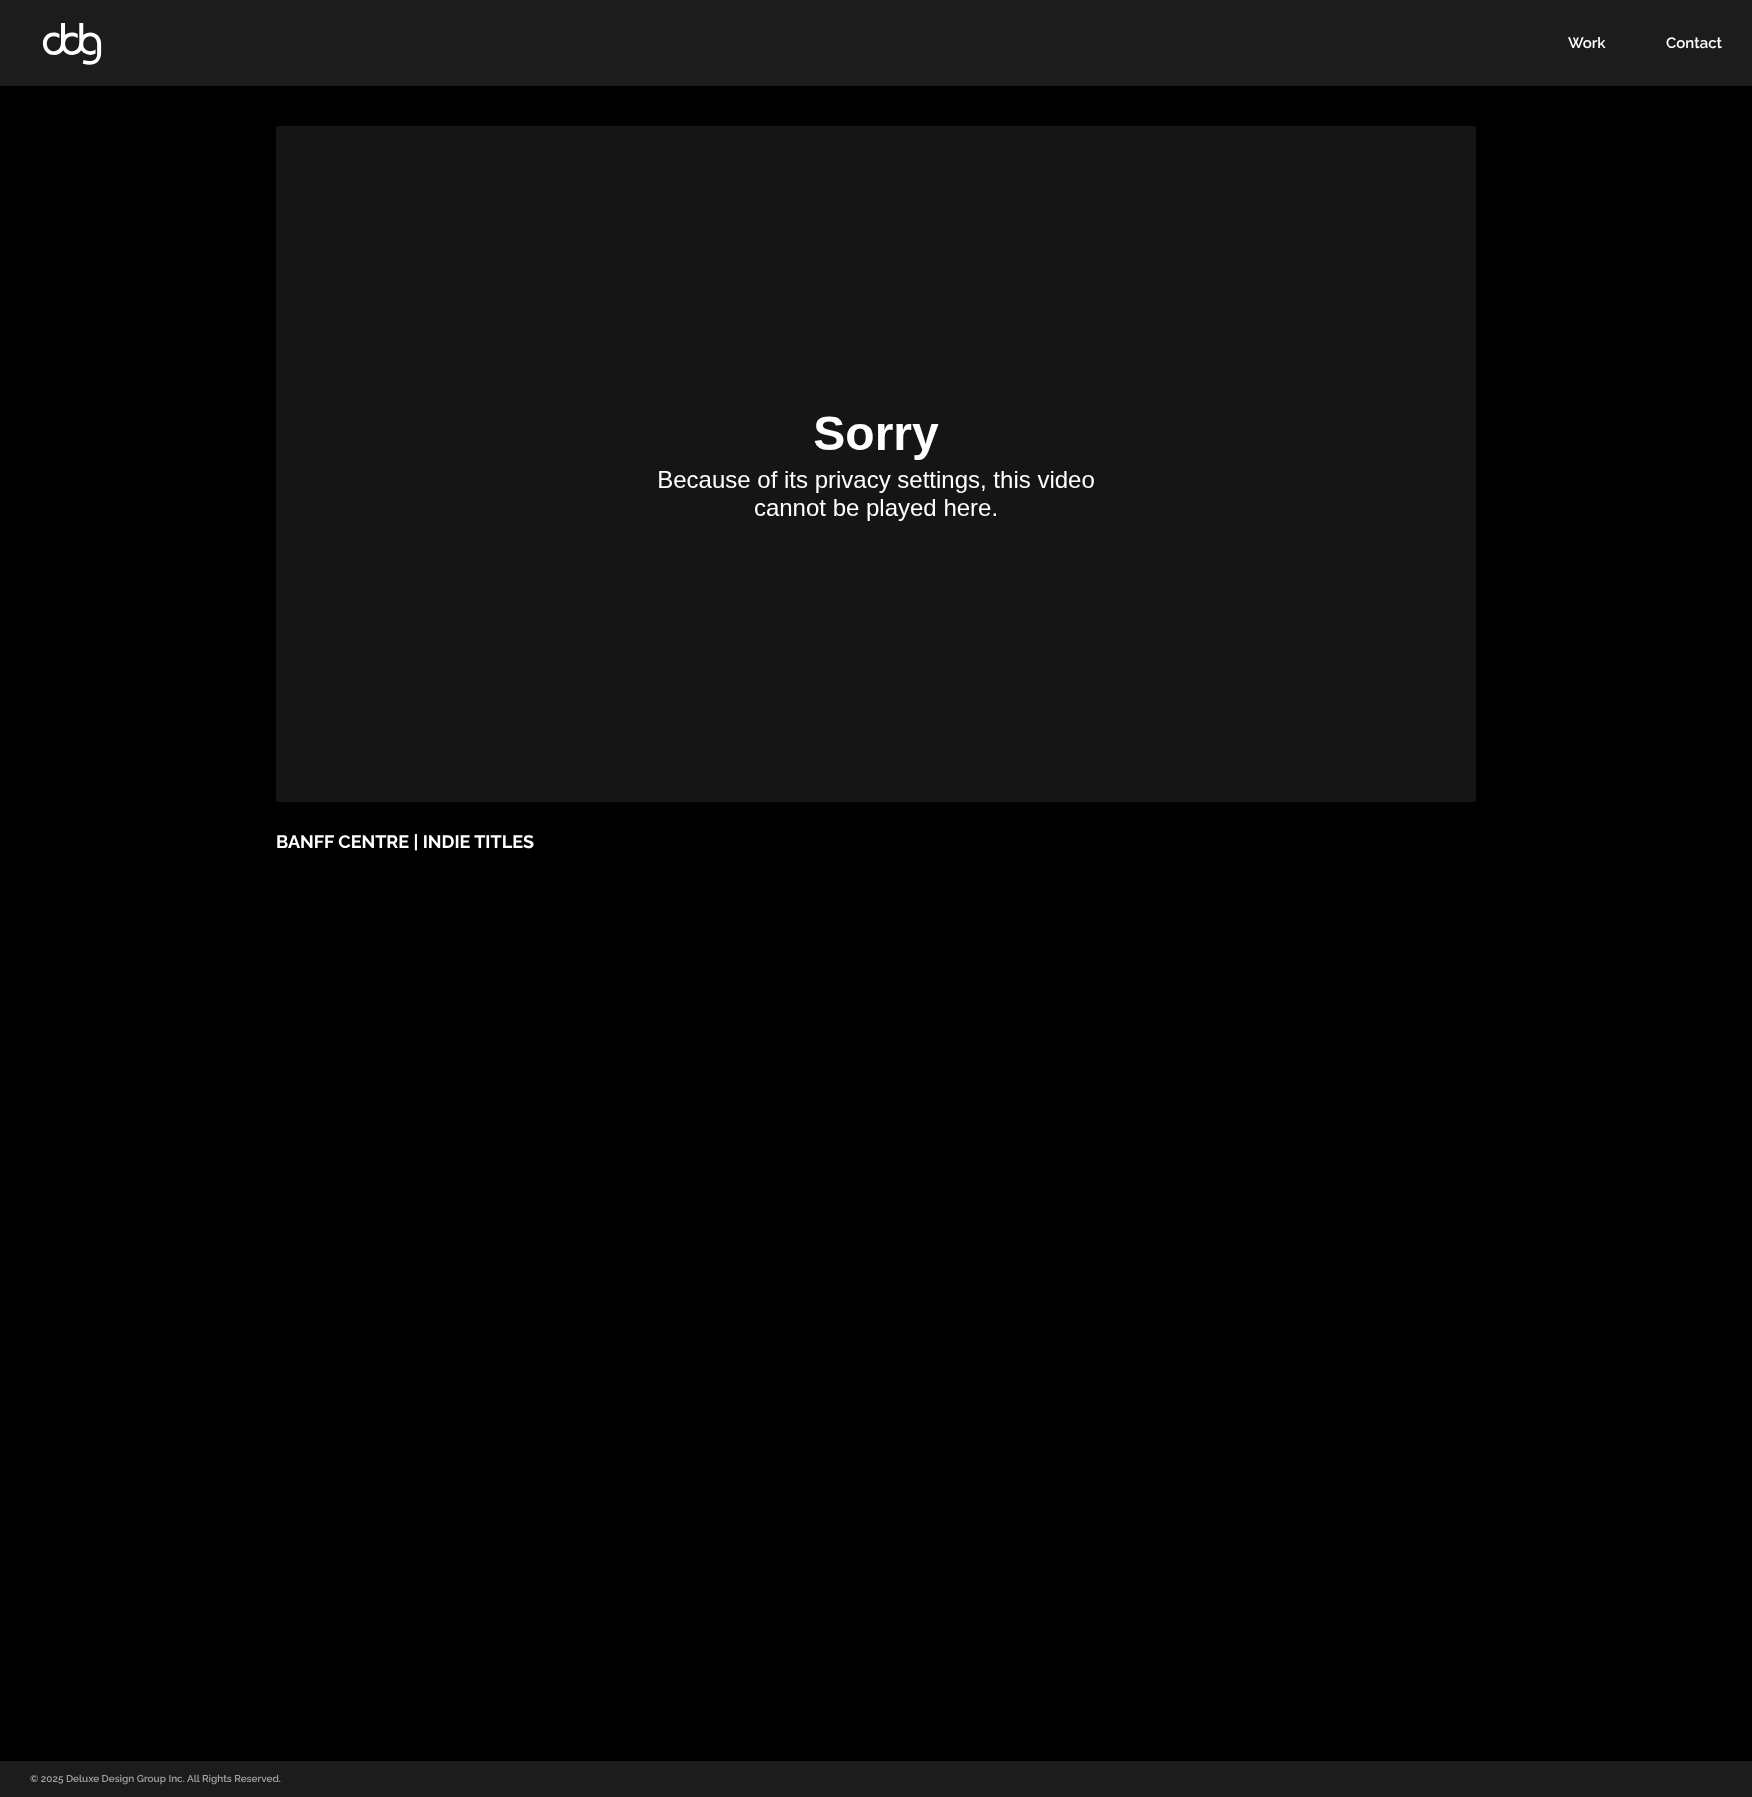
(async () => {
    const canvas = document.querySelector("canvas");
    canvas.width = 1752;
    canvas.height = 1797;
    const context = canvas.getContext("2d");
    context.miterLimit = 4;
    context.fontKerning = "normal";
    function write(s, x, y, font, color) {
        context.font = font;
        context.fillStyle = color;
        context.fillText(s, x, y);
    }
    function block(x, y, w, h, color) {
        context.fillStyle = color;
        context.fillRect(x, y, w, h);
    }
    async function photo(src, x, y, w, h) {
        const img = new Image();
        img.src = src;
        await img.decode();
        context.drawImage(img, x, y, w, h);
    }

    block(0, 0, 1752, 1797, "rgb(0, 0, 0)");
    block(0, 0, 1752, 86, "rgb(29, 28, 28)");
    await photo("media/1.png", 42, 23, 60, 42);
    write("Work", 1568, 48, "600 15px Raleway", "rgb(255, 255, 255)");
    write("Contact", 1666, 48, "600 15px Raleway", "rgb(255, 255, 255)");
    await photo("media/2.png", 276, 126, 1200, 676);
    write("BANFF CENTRE | INDIE TITLES", 276, 848, "bold 18px Raleway", "rgb(255, 255, 255)");
    block(0, 1761, 1752, 36, "rgb(29, 28, 28)");
    write("© 2025 Deluxe Design Group Inc. All Rights Reserved.", 30, 1782, "600 10px Raleway", "rgb(161, 161, 161)");
})();
